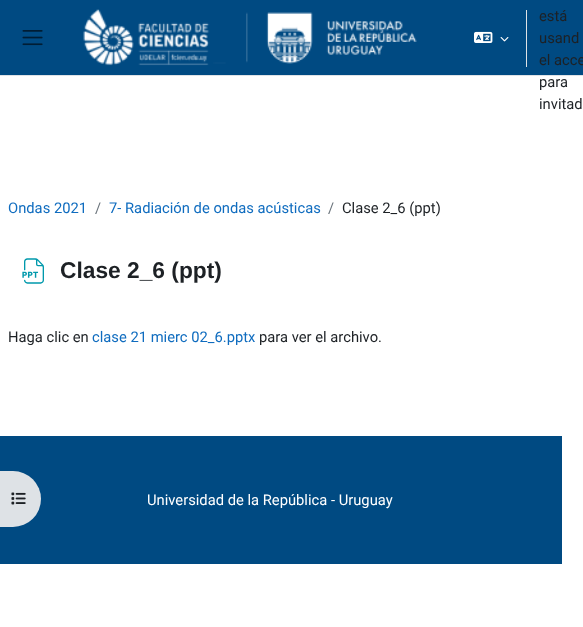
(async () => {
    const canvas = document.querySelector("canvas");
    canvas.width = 583;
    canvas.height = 627;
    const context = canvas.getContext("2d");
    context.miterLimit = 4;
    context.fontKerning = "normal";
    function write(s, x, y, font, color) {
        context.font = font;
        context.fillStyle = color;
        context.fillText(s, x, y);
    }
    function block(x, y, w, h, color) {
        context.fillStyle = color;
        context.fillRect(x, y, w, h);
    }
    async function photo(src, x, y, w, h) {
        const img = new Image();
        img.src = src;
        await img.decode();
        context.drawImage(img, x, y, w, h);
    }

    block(0, 0, 583, 627, "rgb(255, 255, 255)");
    block(0, 0, 583, 75, "rgb(0, 74, 130)");
    block(0, 75, 583, 1, "rgb(222, 226, 230)");
    await photo("media/1.png", 22, 30, 21, 16);
    await photo("media/2.png", 83, 9, 334, 57);
    await photo("media/3.png", 474, 31, 19, 12);
    await photo("media/4.png", 500, 37, 9, 5);
    block(526, 10, 1, 57, "rgb(222, 226, 230)");
    write("está", 539, 21, "14.75px Roboto", "rgb(29, 33, 37)");
    write("usand", 539, 43, "14.75px Roboto", "rgb(29, 33, 37)");
    write("el acce", 539, 65, "14.75px Roboto", "rgb(29, 33, 37)");
    write("para", 539, 87, "14.75px Roboto", "rgb(29, 33, 37)");
    write("invitad", 539, 109, "14.75px Roboto", "rgb(29, 33, 37)");
    write("Ondas 2021", 8, 213, "14.75px Roboto", "rgb(15, 108, 191)");
    write("/", 95, 213, "14.75px Roboto", "rgb(106, 115, 123)");
    write("7- Radiación de ondas acústicas", 109, 213, "14.75px Roboto", "rgb(15, 108, 191)");
    write("/", 328, 213, "14.75px Roboto", "rgb(106, 115, 123)");
    write("Clase 2_6 (ppt)", 342, 213, "14.75px Roboto", "rgb(29, 33, 37)");
    await photo("media/5.png", 22, 258, 22, 26);
    write("Clase 2_6 (ppt)", 60, 278, "bold 22.75px Liberation Sans", "rgb(29, 33, 37)");
    write("Haga clic en", 8, 342, "14.75px Roboto", "rgb(29, 33, 37)");
    write("clase 21 mierc 02_6.pptx", 92, 342, "14.75px Roboto", "rgb(15, 108, 191)");
    write("para ver el archivo.", 259, 342, "14.75px Roboto", "rgb(29, 33, 37)");
    block(0, 436, 562, 128, "rgb(0, 74, 130)");
    context.fillStyle = "rgb(222, 226, 230)";
    context.beginPath();
    context.roundRect(0, 471, 41, 56, [0, 28, 28, 0]);
    context.fill();
    await photo("media/6.png", 11, 492, 15, 13);
    write("Universidad de la República - Uruguay", 147, 505, "14.75px Roboto", "rgb(255, 255, 255)");
})();
